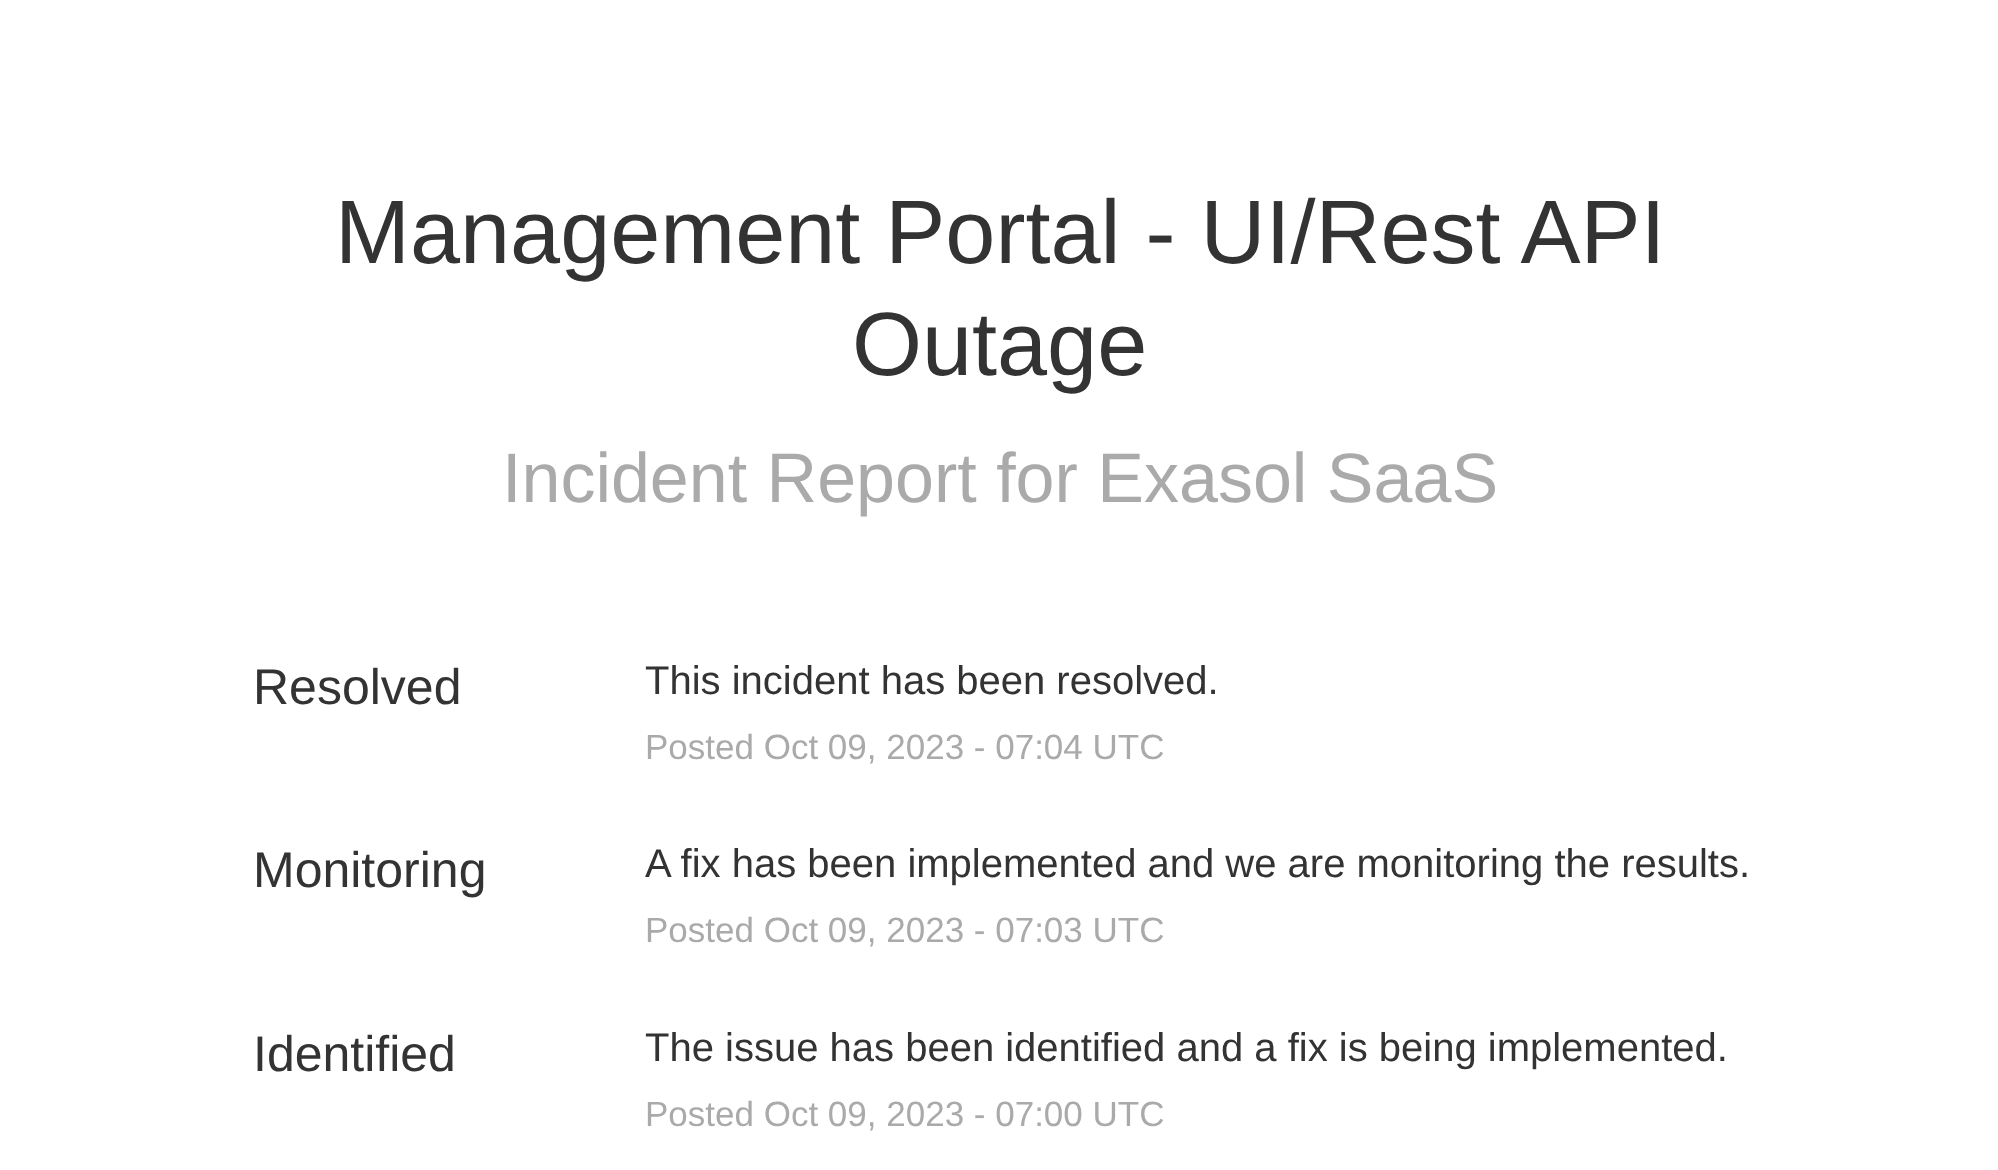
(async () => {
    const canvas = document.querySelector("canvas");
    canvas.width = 1998;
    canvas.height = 1170;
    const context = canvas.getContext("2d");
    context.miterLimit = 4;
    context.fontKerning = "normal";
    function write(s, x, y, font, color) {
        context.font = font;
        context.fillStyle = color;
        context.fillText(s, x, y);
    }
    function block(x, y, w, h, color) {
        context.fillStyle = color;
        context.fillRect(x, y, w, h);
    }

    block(0, 0, 1998, 1170, "rgb(255, 255, 255)");
    write("Management Portal - UI/Rest API", 335, 263, "90px Liberation Sans", "rgb(51, 51, 51)");
    write("Outage", 852, 375, "90px Liberation Sans", "rgb(51, 51, 51)");
    write("Incident Report for Exasol SaaS", 502, 502, "70px Liberation Sans", "rgb(170, 170, 170)");
    write("Resolved", 253, 704, "50px Liberation Sans", "rgb(51, 51, 51)");
    write("This incident has been resolved.", 645, 694, "40px Liberation Sans", "rgb(51, 51, 51)");
    write("Posted Oct 09, 2023 - 07:04 UTC", 645, 759, "35px Liberation Sans", "rgb(170, 170, 170)");
    write("Monitoring", 253, 887, "50px Liberation Sans", "rgb(51, 51, 51)");
    write("A fix has been implemented and we are monitoring the results.", 645, 877, "40px Liberation Sans", "rgb(51, 51, 51)");
    write("Posted Oct 09, 2023 - 07:03 UTC", 645, 942, "35px Liberation Sans", "rgb(170, 170, 170)");
    write("Identified", 253, 1071, "50px Liberation Sans", "rgb(51, 51, 51)");
    write("The issue has been identified and a fix is being implemented.", 645, 1061, "40px Liberation Sans", "rgb(51, 51, 51)");
    write("Posted Oct 09, 2023 - 07:00 UTC", 645, 1126, "35px Liberation Sans", "rgb(170, 170, 170)");
})();
